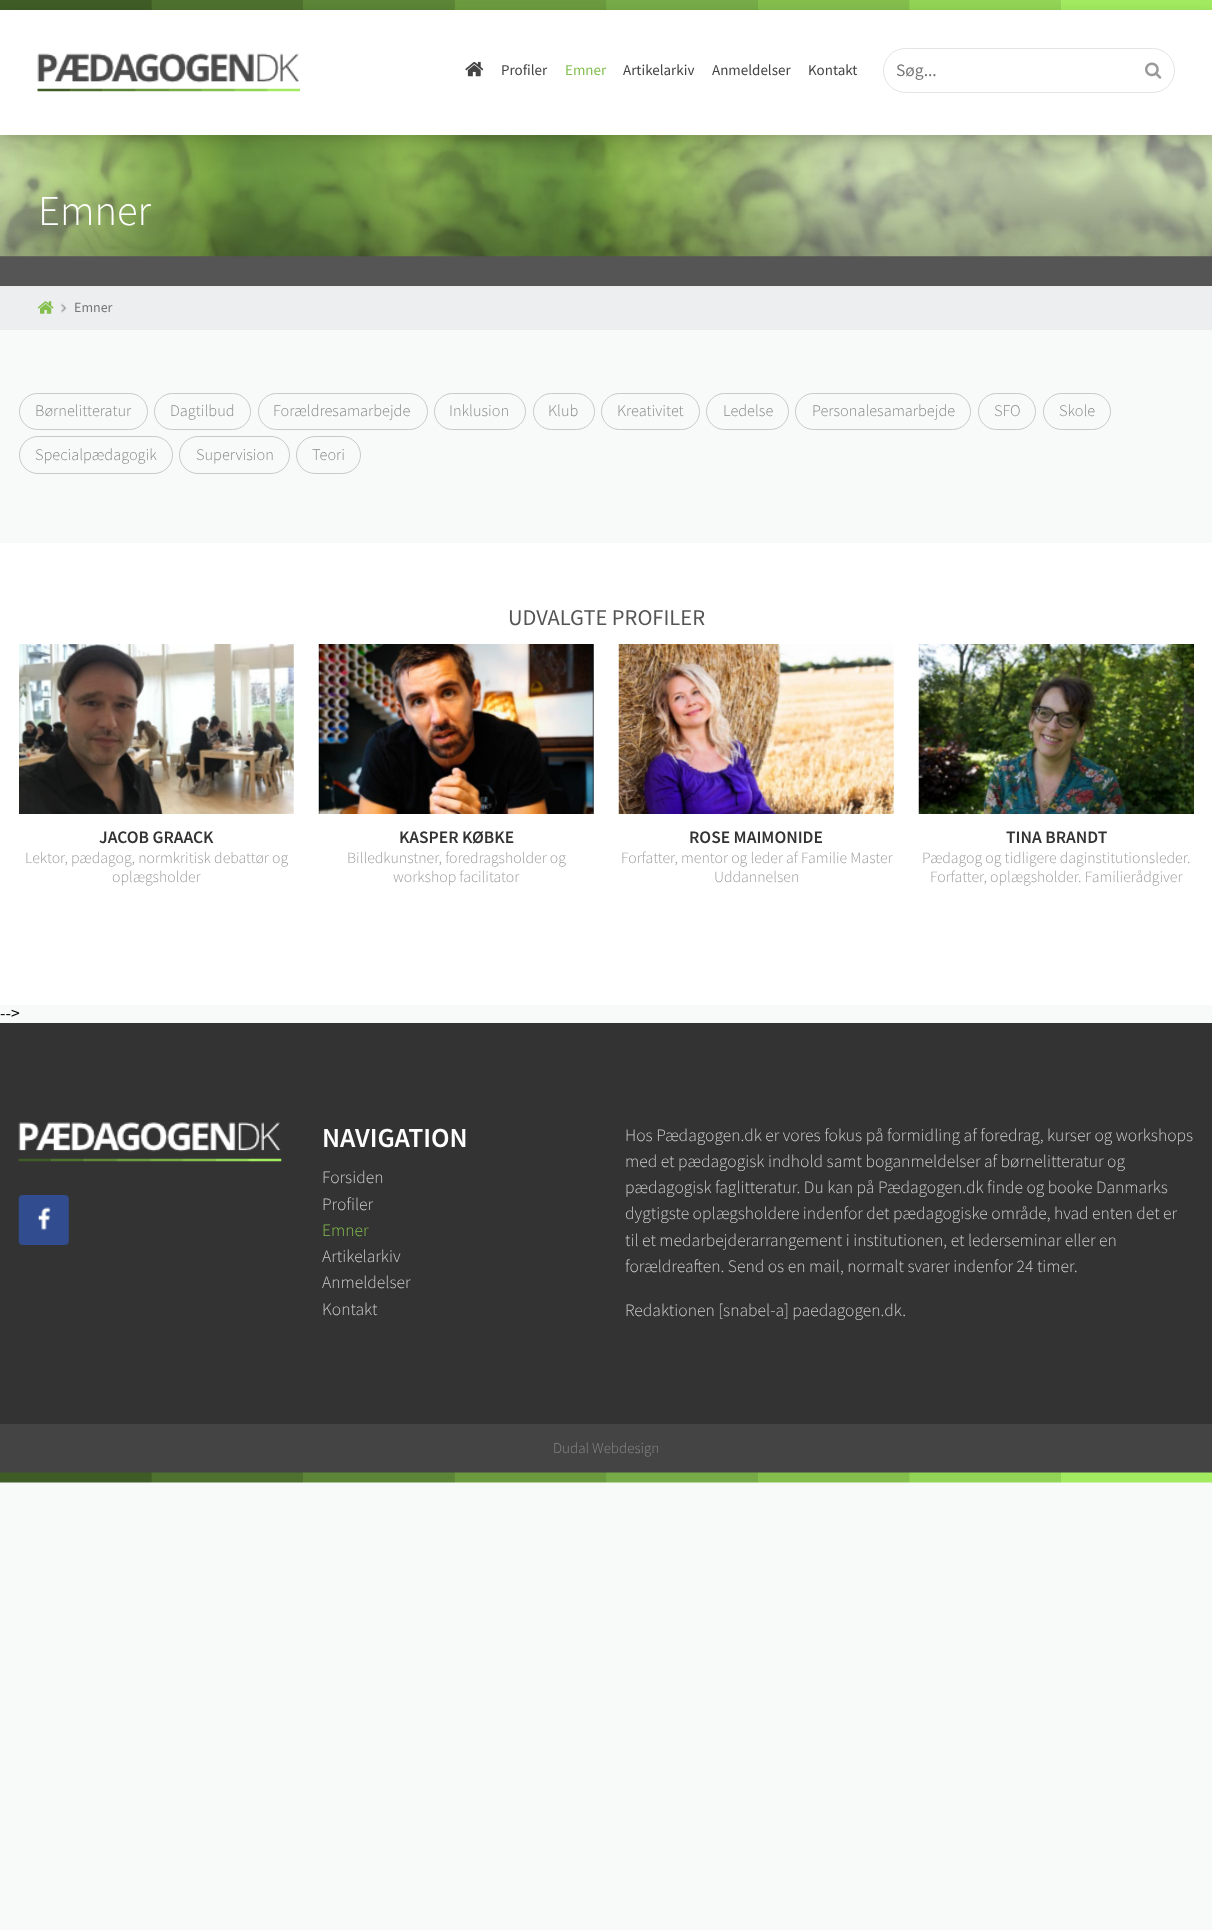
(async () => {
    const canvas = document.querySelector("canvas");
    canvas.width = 1212;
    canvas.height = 1930;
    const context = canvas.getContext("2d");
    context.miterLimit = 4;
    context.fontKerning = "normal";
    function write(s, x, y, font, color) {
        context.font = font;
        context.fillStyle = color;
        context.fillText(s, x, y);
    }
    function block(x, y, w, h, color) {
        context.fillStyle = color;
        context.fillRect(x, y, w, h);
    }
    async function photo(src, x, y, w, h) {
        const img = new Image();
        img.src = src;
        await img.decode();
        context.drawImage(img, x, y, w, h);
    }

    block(0, 0, 1212, 1930, "rgb(248, 250, 250)");
    await photo("media/1.png", 0, 0, 1212, 10);
    block(0, 256, 1212, 30, "rgb(85, 85, 85)");
    await photo("media/5.png", 0, 135, 1212, 122);
    context.fillStyle = "rgba(0, 0, 0, 0.13)";
    context.filter = "blur(5.5px)";
    context.beginPath();
    context.rect(0, 13, 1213, 125);
    context.fill();
    context.filter = "none";
    block(0, 10, 1212, 125, "rgb(255, 255, 255)");
    await photo("media/2.png", 37, 53, 263, 39);
    await photo("media/3.png", 465, 61, 19, 16);
    write("Profiler", 501, 75, "15px Source Sans Pro", "rgb(68, 68, 68)");
    write("Emner", 565, 75, "15px Source Sans Pro", "rgb(132, 191, 78)");
    write("Artikelarkiv", 623, 75, "15px Source Sans Pro", "rgb(68, 68, 68)");
    write("Anmeldelser", 712, 75, "15px Source Sans Pro", "rgb(68, 68, 68)");
    write("Kontakt", 808, 75, "15px Source Sans Pro", "rgb(68, 68, 68)");
    context.beginPath();
    context.roundRect(883.5, 48.5, 291, 44, 22);
    context.strokeStyle = "rgb(228, 228, 228)";
    context.stroke();
    write("Søg...", 896, 76, "17.5px Source Sans Pro", "rgb(119, 119, 119)");
    await photo("media/4.png", 1145, 62, 17, 17);
    write("Emner", 38, 225, "300 42.5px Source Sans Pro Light", "rgb(255, 255, 255)");
    block(0, 287, 1212, 42, "rgb(237, 238, 239)");
    block(0, 286, 1212, 1, "rgb(237, 237, 237)");
    block(0, 329, 1212, 1, "rgb(237, 237, 237)");
    await photo("media/6.png", 61, 303, 6, 10);
    await photo("media/7.png", 37, 301, 17, 13);
    write("Emner", 74, 312, "14px Source Sans Pro", "rgb(119, 119, 119)");
    context.beginPath();
    context.roundRect(19.5, 393.5, 128, 36, 18);
    context.strokeStyle = "rgb(201, 201, 201)";
    context.stroke();
    write("Børnelitteratur", 35, 416, "300 16.25px Source Sans Pro Light", "rgb(136, 136, 136)");
    context.beginPath();
    context.roundRect(154.5, 393.5, 96, 36, 18);
    context.stroke();
    write("Dagtilbud", 170, 416, "300 16.25px Source Sans Pro Light", "rgb(136, 136, 136)");
    context.beginPath();
    context.roundRect(258.5, 393.5, 169, 36, 18);
    context.stroke();
    write("Forældresamarbejde", 273, 416, "300 16.25px Source Sans Pro Light", "rgb(136, 136, 136)");
    context.beginPath();
    context.roundRect(434.5, 393.5, 91, 36, 18);
    context.stroke();
    write("Inklusion", 449, 416, "300 16.25px Source Sans Pro Light", "rgb(136, 136, 136)");
    context.beginPath();
    context.roundRect(533.5, 393.5, 61, 36, 18);
    context.stroke();
    write("Klub", 548, 416, "300 16.25px Source Sans Pro Light", "rgb(136, 136, 136)");
    context.beginPath();
    context.roundRect(601.5, 393.5, 98, 36, 18);
    context.stroke();
    write("Kreativitet", 617, 416, "300 16.25px Source Sans Pro Light", "rgb(136, 136, 136)");
    context.beginPath();
    context.roundRect(706.5, 393.5, 82, 36, 18);
    context.stroke();
    write("Ledelse", 723, 416, "300 16.25px Source Sans Pro Light", "rgb(136, 136, 136)");
    context.beginPath();
    context.roundRect(795.5, 393.5, 175, 36, 18);
    context.stroke();
    write("Personalesamarbejde", 812, 416, "300 16.25px Source Sans Pro Light", "rgb(136, 136, 136)");
    context.beginPath();
    context.roundRect(978.5, 393.5, 57, 36, 18);
    context.stroke();
    write("SFO", 994, 416, "300 16.25px Source Sans Pro Light", "rgb(136, 136, 136)");
    context.beginPath();
    context.roundRect(1043.5, 393.5, 67, 36, 18);
    context.stroke();
    write("Skole", 1059, 416, "300 16.25px Source Sans Pro Light", "rgb(136, 136, 136)");
    context.beginPath();
    context.roundRect(19.5, 436.5, 153, 37, 18.5);
    context.stroke();
    write("Specialpædagogik", 35, 460, "300 16.25px Source Sans Pro Light", "rgb(136, 136, 136)");
    context.beginPath();
    context.roundRect(179.5, 436.5, 110, 37, 18.5);
    context.stroke();
    write("Supervision", 196, 460, "300 16.25px Source Sans Pro Light", "rgb(136, 136, 136)");
    context.beginPath();
    context.roundRect(296.5, 436.5, 64, 37, 18.5);
    context.stroke();
    write("Teori", 312, 460, "300 16.25px Source Sans Pro Light", "rgb(136, 136, 136)");
    block(0, 543, 1212, 462, "rgb(255, 255, 255)");
    write("UDVALGTE PROFILER", 508, 625, "22.5px Source Sans Pro", "rgb(85, 85, 85)");
    await photo("media/8.png", 19, 644, 275, 170);
    write("JACOB GRAACK", 99, 843, "600 17.5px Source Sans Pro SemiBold", "rgb(51, 51, 51)");
    write("Lektor, pædagog, normkritisk debattør og", 25, 863, "300 15.75px Source Sans Pro Light", "rgb(155, 155, 155)");
    write("oplægsholder", 112, 882, "300 15.75px Source Sans Pro Light", "rgb(155, 155, 155)");
    await photo("media/9.png", 318, 644, 276, 170);
    write("KASPER KØBKE", 399, 843, "600 17.5px Source Sans Pro SemiBold", "rgb(51, 51, 51)");
    write("Billedkunstner, foredragsholder og", 347, 863, "300 15.75px Source Sans Pro Light", "rgb(155, 155, 155)");
    write("workshop facilitator", 393, 882, "300 15.75px Source Sans Pro Light", "rgb(155, 155, 155)");
    await photo("media/10.png", 618, 644, 276, 170);
    write("ROSE MAIMONIDE", 689, 843, "600 17.5px Source Sans Pro SemiBold", "rgb(51, 51, 51)");
    write("Forfatter, mentor og leder af Familie Master", 621, 863, "300 15.75px Source Sans Pro Light", "rgb(155, 155, 155)");
    write("Uddannelsen", 714, 882, "300 15.75px Source Sans Pro Light", "rgb(155, 155, 155)");
    await photo("media/11.png", 918, 644, 276, 170);
    write("TINA BRANDT", 1006, 843, "600 17.5px Source Sans Pro SemiBold", "rgb(51, 51, 51)");
    write("Pædagog og tidligere daginstitutionsleder.", 922, 863, "300 15.75px Source Sans Pro Light", "rgb(155, 155, 155)");
    write("Forfatter, oplægsholder. Familierådgiver", 930, 882, "300 15.75px Source Sans Pro Light", "rgb(155, 155, 155)");
    write("-->", 0, 1019, "17.5px Source Sans Pro", "rgb(0, 0, 0)");
    block(0, 1023, 1212, 401, "rgb(51, 51, 51)");
    await photo("media/12.png", 18, 1122, 264, 40);
    await photo("media/13.png", 18, 1195, 51, 50);
    write("NAVIGATION", 322, 1147, "600 27.5px Source Sans Pro SemiBold", "rgb(255, 255, 255)");
    write("Forsiden", 322, 1183, "300 17.5px Source Sans Pro Light", "rgb(204, 204, 204)");
    write("Profiler", 322, 1210, "300 17.5px Source Sans Pro Light", "rgb(204, 204, 204)");
    write("Emner", 322, 1236, "300 17.5px Source Sans Pro Light", "rgb(132, 191, 78)");
    write("Artikelarkiv", 322, 1262, "300 17.5px Source Sans Pro Light", "rgb(204, 204, 204)");
    write("Anmeldelser", 322, 1288, "300 17.5px Source Sans Pro Light", "rgb(204, 204, 204)");
    write("Kontakt", 322, 1315, "300 17.5px Source Sans Pro Light", "rgb(204, 204, 204)");
    write("Hos Pædagogen.dk er vores fokus på formidling af foredrag, kurser og workshops", 625, 1141, "300 17.5px Source Sans Pro Light", "rgb(204, 204, 204)");
    write("med et pædagogisk indhold samt boganmeldelser af børnelitteratur og", 625, 1167, "300 17.5px Source Sans Pro Light", "rgb(204, 204, 204)");
    write("pædagogisk faglitteratur. Du kan på Pædagogen.dk finde og booke Danmarks", 625, 1193, "300 17.5px Source Sans Pro Light", "rgb(204, 204, 204)");
    write("dygtigste oplægsholdere indenfor det pædagogiske område, hvad enten det er", 625, 1219, "300 17.5px Source Sans Pro Light", "rgb(204, 204, 204)");
    write("til et medarbejderarrangement i institutionen, et lederseminar eller en", 625, 1246, "300 17.5px Source Sans Pro Light", "rgb(204, 204, 204)");
    write("forældreaften. Send os en mail, normalt svarer indenfor 24 timer.", 625, 1272, "300 17.5px Source Sans Pro Light", "rgb(204, 204, 204)");
    write("Redaktionen [snabel-a] paedagogen.dk.", 625, 1316, "300 17.5px Source Sans Pro Light", "rgb(204, 204, 204)");
    block(0, 1424, 1212, 49, "rgb(68, 68, 68)");
    write("Dudal Webdesign", 553, 1453, "300 15px Source Sans Pro Light", "rgb(136, 136, 136)");
    await photo("media/14.png", 0, 1472, 1212, 11);
})();
